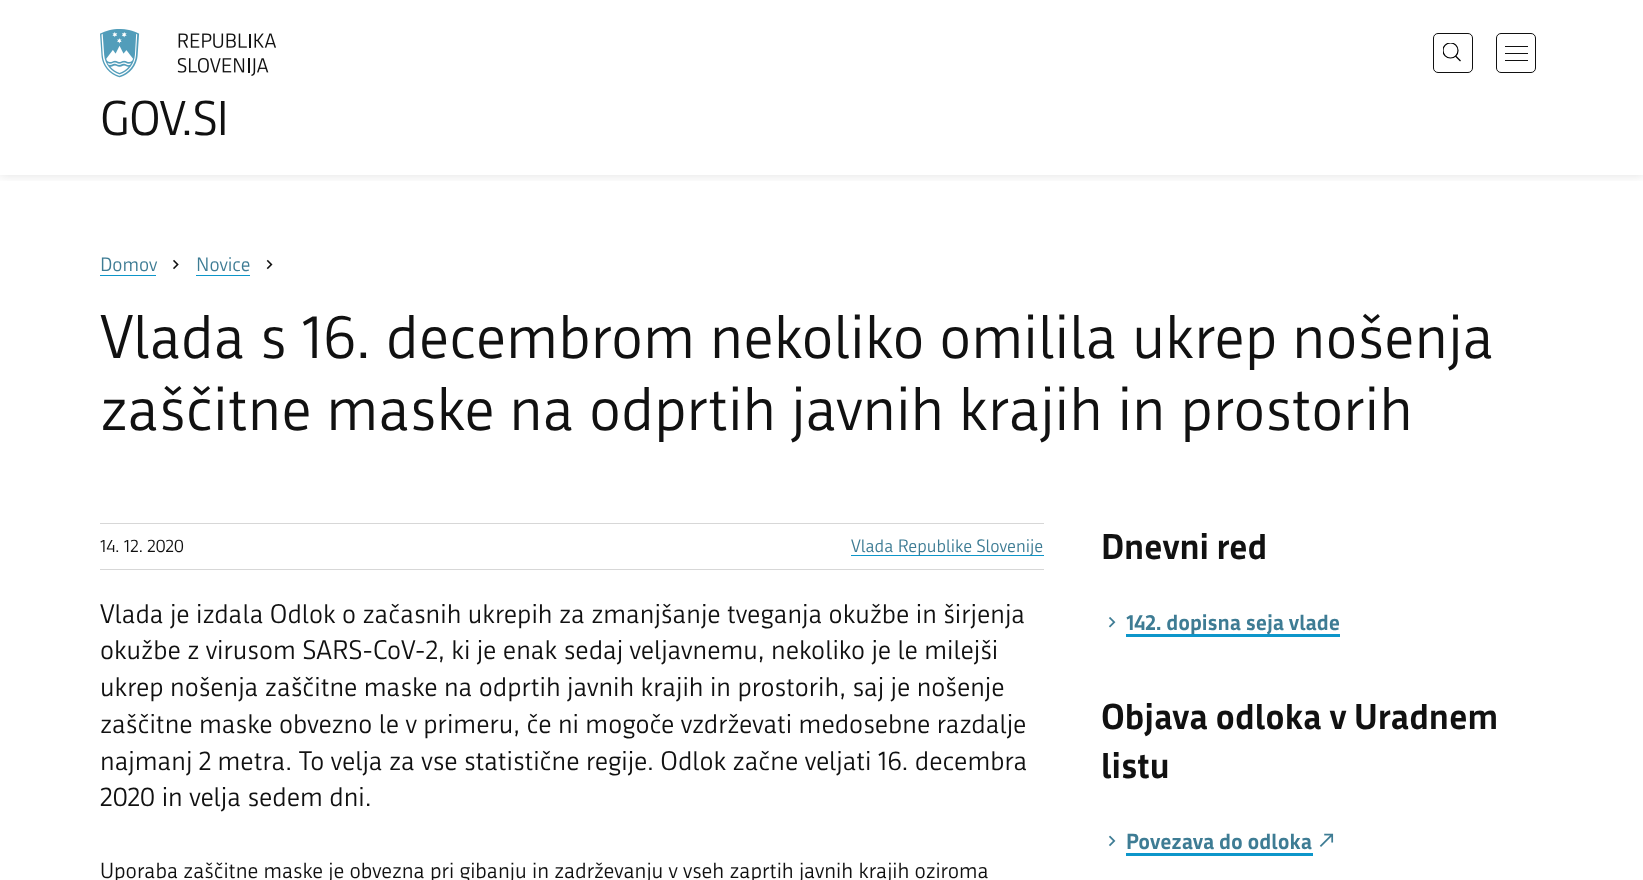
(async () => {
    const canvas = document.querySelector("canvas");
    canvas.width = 1643;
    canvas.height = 880;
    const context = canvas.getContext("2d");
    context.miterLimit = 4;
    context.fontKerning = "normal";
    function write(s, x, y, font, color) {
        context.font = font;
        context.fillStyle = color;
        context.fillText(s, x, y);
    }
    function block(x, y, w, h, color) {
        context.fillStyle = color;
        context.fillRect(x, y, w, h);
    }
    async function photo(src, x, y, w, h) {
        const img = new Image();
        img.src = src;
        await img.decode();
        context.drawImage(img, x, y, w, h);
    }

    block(0, 0, 1643, 880, "rgb(255, 255, 255)");
    context.save();
    context.beginPath();
    context.rect(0, 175, 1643, 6);
    context.clip();
    context.fillStyle = "rgba(0, 0, 0, 0.12)";
    context.filter = "blur(6px)";
    context.beginPath();
    context.rect(0, 0, 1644, 175);
    context.fill();
    context.filter = "none";
    context.restore();
    context.beginPath();
    context.roundRect(1433.5, 33.5, 39, 39, 4.5);
    context.strokeStyle = "rgb(17, 17, 17)";
    context.stroke();
    context.save();
    context.beginPath();
    context.rect(1443, 43, 18, 18);
    context.clip();
    context.beginPath();
    context.arc(1450.5, 50.5, 7.5, 0, Math.PI * 2);
    context.strokeStyle = "rgb(0, 0, 0)";
    context.lineWidth = 1.2;
    context.stroke();
    context.restore();
    context.beginPath();
    context.moveTo(1455.5, 56);
    context.lineTo(1460.5, 61);
    context.strokeStyle = "rgb(0, 0, 0)";
    context.lineWidth = 1.2;
    context.stroke();
    context.beginPath();
    context.roundRect(1496.5, 33.5, 39, 39, 4.5);
    context.strokeStyle = "rgb(17, 17, 17)";
    context.lineWidth = 1;
    context.stroke();
    block(1505, 60, 23, 1, "rgb(17, 17, 17)");
    block(1505, 46, 23, 1, "rgb(17, 17, 17)");
    block(1505, 53, 23, 1, "rgb(17, 17, 17)");
    await photo("media/1.png", 100, 29, 176, 49);
    context.letterSpacing = "-1px";
    write("GOV.SI", 100, 135, "47.5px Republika", "rgb(17, 17, 17)");
    context.letterSpacing = "0px";
    write("Domov", 100, 271, "19px Republika", "rgb(62, 124, 148)");
    block(100, 275, 56, 1, "rgb(13, 150, 202)");
    await photo("media/2.png", 173, 259, 6, 11);
    write("Novice", 196, 271, "19px Republika", "rgb(62, 124, 148)");
    block(196, 275, 54, 1, "rgb(13, 150, 202)");
    await photo("media/3.png", 266, 259, 7, 11);
    write("Vlada s 16. decembrom nekoliko omilila ukrep nošenja", 100, 358, "60px Republika", "rgb(17, 17, 17)");
    write("zaščitne maske na odprtih javnih krajih in prostorih", 100, 430, "60px Republika", "rgb(17, 17, 17)");
    block(100, 523, 944, 1, "rgb(215, 215, 215)");
    block(100, 569, 944, 1, "rgb(215, 215, 215)");
    write("14. 12. 2020", 100, 552, "17.5px Republika", "rgb(17, 17, 17)");
    block(851, 555, 193, 1, "rgb(13, 150, 202)");
    write("Vlada Republike Slovenije", 851, 552, "17.5px Republika", "rgb(62, 124, 148)");
    write("Vlada je izdala Odlok o začasnih ukrepih za zmanjšanje tveganja okužbe in širjenja", 100, 623, "26.25px Republika", "rgb(17, 17, 17)");
    write("okužbe z virusom SARS-CoV-2, ki je enak sedaj veljavnemu, nekoliko je le milejši", 100, 659, "26.25px Republika", "rgb(17, 17, 17)");
    write("ukrep nošenja zaščitne maske na odprtih javnih krajih in prostorih, saj je nošenje", 100, 696, "26.25px Republika", "rgb(17, 17, 17)");
    write("zaščitne maske obvezno le v primeru, če ni mogoče vzdrževati medosebne razdalje", 100, 733, "26.25px Republika", "rgb(17, 17, 17)");
    write("najmanj 2 metra. To velja za vse statistične regije. Odlok začne veljati 16. decembra", 100, 770, "26.25px Republika", "rgb(17, 17, 17)");
    write("2020 in velja sedem dni.", 100, 806, "26.25px Republika", "rgb(17, 17, 17)");
    write("Uporaba zaščitne maske je obvezna pri gibanju in zadrževanju v vseh zaprtih javnih krajih oziroma", 100, 878, "21.25px Republika", "rgb(17, 17, 17)");
    write("Dnevni red", 1101, 559, "bold 35px Republika", "rgb(17, 17, 17)");
    await photo("media/4.png", 1108, 617, 8, 11);
    block(1126, 634, 214, 3, "rgb(13, 150, 202)");
    write("142. dopisna seja vlade", 1126, 630, "bold 21.25px Republika", "rgb(62, 124, 148)");
    write("Objava odloka v Uradnem", 1101, 729, "bold 35px Republika", "rgb(17, 17, 17)");
    write("listu", 1101, 778, "bold 35px Republika", "rgb(17, 17, 17)");
    await photo("media/5.png", 1108, 835, 8, 12);
    write("Povezava do odloka", 1126, 849, "bold 21.25px Republika", "rgb(62, 124, 148)");
    block(1126, 853, 187, 3, "rgb(13, 150, 202)");
    await photo("media/6.png", 1319, 833, 15, 14);
})();
